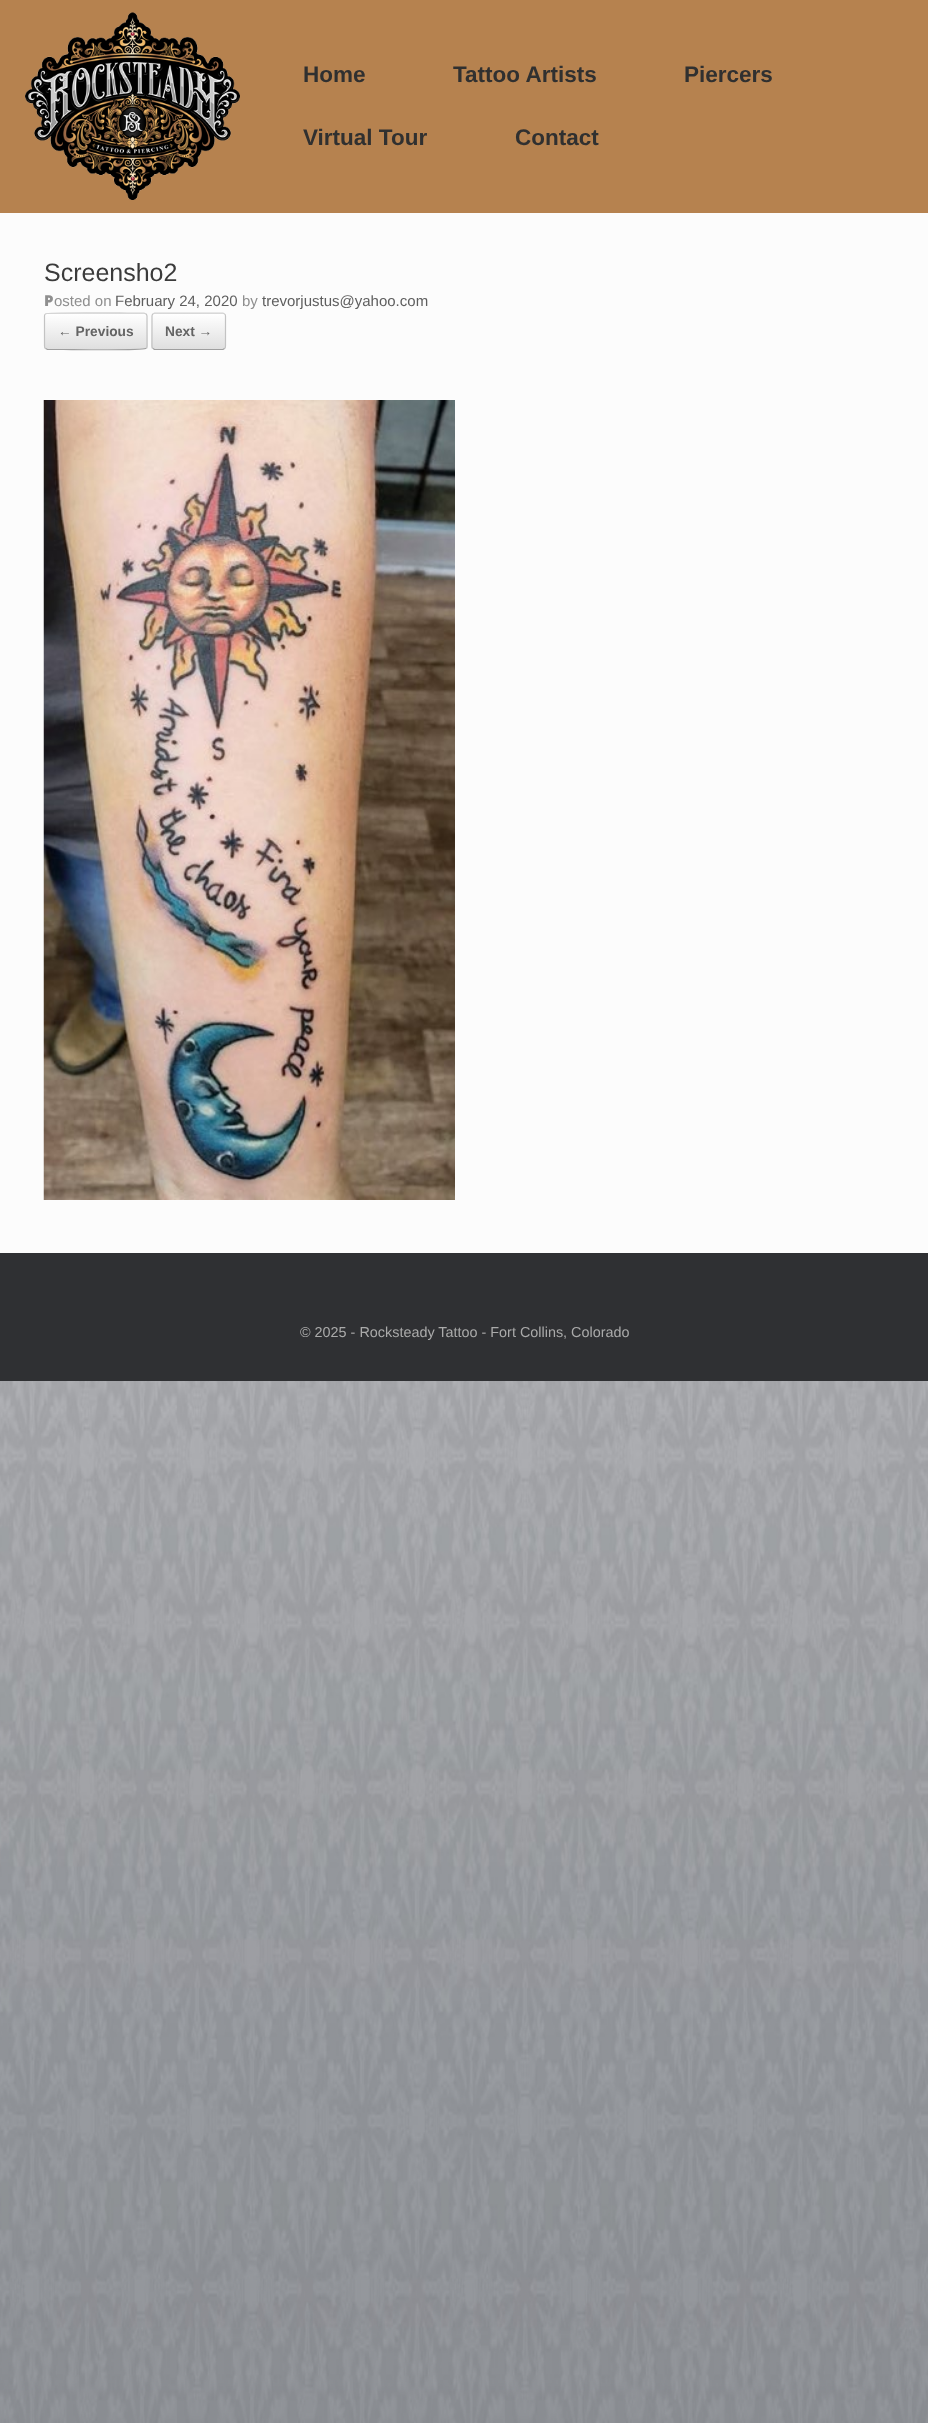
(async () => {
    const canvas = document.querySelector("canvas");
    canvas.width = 928;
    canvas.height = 2423;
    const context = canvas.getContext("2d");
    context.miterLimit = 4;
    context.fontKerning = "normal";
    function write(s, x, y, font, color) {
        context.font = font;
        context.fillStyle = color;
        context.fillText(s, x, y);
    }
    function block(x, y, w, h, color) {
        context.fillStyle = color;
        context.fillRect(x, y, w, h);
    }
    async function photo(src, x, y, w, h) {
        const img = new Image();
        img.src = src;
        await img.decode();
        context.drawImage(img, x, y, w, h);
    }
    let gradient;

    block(0, 0, 928, 2423, "rgb(255, 255, 255)");
    block(0, 0, 928, 213, "rgb(182, 130, 79)");
    await photo("media/1.png", 25, 12, 215, 188);
    write("Home", 303, 82, "bold 22.5px Liberation Sans", "rgb(48, 48, 48)");
    write("Tattoo Artists", 453, 82, "bold 22.5px Liberation Sans", "rgb(48, 48, 48)");
    write("Piercers", 684, 82, "bold 22.5px Liberation Sans", "rgb(48, 48, 48)");
    write("Virtual Tour", 303, 145, "bold 22.5px Liberation Sans", "rgb(48, 48, 48)");
    write("Contact", 515, 145, "bold 22.5px Liberation Sans", "rgb(48, 48, 48)");
    block(0, 213, 928, 1040, "rgb(252, 252, 252)");
    write("Screensho2", 44, 281, "25px Liberation Sans", "rgb(59, 59, 59)");
    write("P", 44, 306, "900 15px Noto Sans", "rgb(143, 143, 143)");
    write("osted on", 54, 306, "15px Liberation Sans", "rgb(143, 143, 143)");
    write("February 24, 2020", 115, 306, "15px Liberation Sans", "rgb(94, 94, 94)");
    write("by", 242, 306, "15px Liberation Sans", "rgb(143, 143, 143)");
    write("trevorjustus@yahoo.com", 262, 306, "15px Liberation Sans", "rgb(94, 94, 94)");
    context.save();
    context.beginPath();
    context.roundRect(44, 313, 104, 37, 4);
    context.clip();
    gradient = context.createLinearGradient(45, 314, 45, 279);
    gradient.addColorStop(0, "rgb(223, 223, 223)");
    gradient.addColorStop(1, "rgb(255, 255, 255)");
    context.fillStyle = gradient;
    context.fillRect(44, 313, 104, 1);
    gradient = context.createLinearGradient(45, 349, 45, 314);
    gradient.addColorStop(0, "rgb(223, 223, 223)");
    gradient.addColorStop(1, "rgb(255, 255, 255)");
    context.fillStyle = gradient;
    context.fillRect(44, 314, 104, 35);
    gradient = context.createLinearGradient(45, 384, 45, 349);
    gradient.addColorStop(0, "rgb(223, 223, 223)");
    gradient.addColorStop(1, "rgb(255, 255, 255)");
    context.fillStyle = gradient;
    context.fillRect(44, 349, 104, 1);
    context.restore();
    context.beginPath();
    context.moveTo(45.5, 314);
    context.bezierCurveTo(47.5, 312, 119, 313, 127.5, 313);
    context.lineTo(144, 313);
    context.lineTo(146, 314);
    context.strokeStyle = "rgb(210, 210, 210)";
    context.lineWidth = 1.2;
    context.stroke();
    context.beginPath();
    context.moveTo(146, 314);
    context.bezierCurveTo(146.5, 314.5, 147, 315.5, 147, 316);
    context.lineTo(147, 346);
    context.bezierCurveTo(147, 347, 146.5, 348, 146, 348.5);
    context.strokeStyle = "rgb(195, 195, 195)";
    context.stroke();
    context.beginPath();
    context.moveTo(146, 348.5);
    context.lineTo(145.5, 348.5);
    context.bezierCurveTo(143.5, 350.5, 72.5, 349.5, 63.5, 349.5);
    context.lineTo(47.5, 349.5);
    context.lineTo(45.5, 348.5);
    context.strokeStyle = "rgb(159, 159, 159)";
    context.stroke();
    context.beginPath();
    context.moveTo(45.5, 348.5);
    context.bezierCurveTo(44.5, 348, 44.5, 347, 44.5, 346);
    context.lineTo(44.5, 316);
    context.bezierCurveTo(44.5, 315.5, 44.5, 314.5, 45.5, 314);
    context.strokeStyle = "rgb(195, 195, 195)";
    context.stroke();
    write("← Previous", 58, 336, "bold 13.75px Liberation Sans", "rgb(100, 100, 100)");
    context.save();
    context.beginPath();
    context.roundRect(151, 313, 75, 37, 4);
    context.clip();
    gradient = context.createLinearGradient(153, 314, 153, 279);
    gradient.addColorStop(0, "rgb(223, 223, 223)");
    gradient.addColorStop(1, "rgb(255, 255, 255)");
    context.fillStyle = gradient;
    context.fillRect(151, 313, 75, 1);
    gradient = context.createLinearGradient(153, 349, 153, 314);
    gradient.addColorStop(0, "rgb(223, 223, 223)");
    gradient.addColorStop(1, "rgb(255, 255, 255)");
    context.fillStyle = gradient;
    context.fillRect(151, 314, 75, 35);
    context.restore();
    context.beginPath();
    context.moveTo(153, 314);
    context.lineTo(154.5, 313);
    context.lineTo(223, 313);
    context.lineTo(224.5, 314);
    context.strokeStyle = "rgb(210, 210, 210)";
    context.stroke();
    context.beginPath();
    context.moveTo(224.5, 314);
    context.bezierCurveTo(225.5, 314.5, 225.5, 315.5, 225.5, 316);
    context.lineTo(225.5, 346);
    context.bezierCurveTo(225.5, 347, 225.5, 348, 224.5, 348.5);
    context.strokeStyle = "rgb(195, 195, 195)";
    context.stroke();
    context.beginPath();
    context.moveTo(224.5, 348.5);
    context.lineTo(223, 349.5);
    context.lineTo(154.5, 349.5);
    context.lineTo(153, 348.5);
    context.strokeStyle = "rgb(159, 159, 159)";
    context.stroke();
    context.beginPath();
    context.moveTo(153, 348.5);
    context.bezierCurveTo(152, 348, 152, 347, 152, 346);
    context.lineTo(152, 316);
    context.bezierCurveTo(152, 315.5, 152, 314.5, 153, 314);
    context.strokeStyle = "rgb(195, 195, 195)";
    context.stroke();
    write("Next →", 165, 336, "bold 13.75px Liberation Sans", "rgb(100, 100, 100)");
    await photo("media/2.png", 43, 400, 412, 800);
    block(0, 1253, 928, 128, "rgb(47, 48, 51)");
    write("© 2025 - Rocksteady Tattoo - Fort Collins, Colorado", 300, 1337, "14.4px Liberation Sans", "rgb(170, 170, 170)");
    await photo("media/3.png", 0, 1381, 928, 1042);
})();
